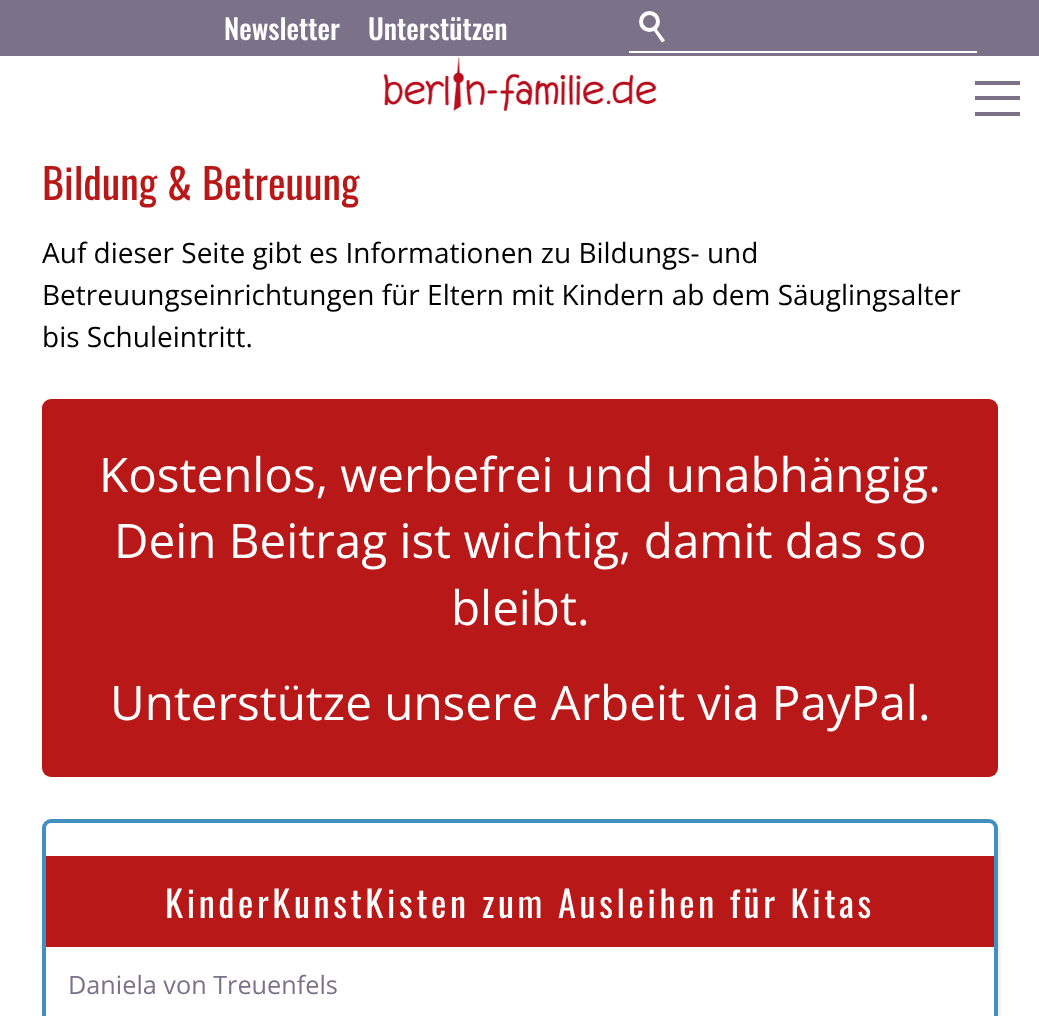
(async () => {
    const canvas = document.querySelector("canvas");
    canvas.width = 1039;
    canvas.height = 1016;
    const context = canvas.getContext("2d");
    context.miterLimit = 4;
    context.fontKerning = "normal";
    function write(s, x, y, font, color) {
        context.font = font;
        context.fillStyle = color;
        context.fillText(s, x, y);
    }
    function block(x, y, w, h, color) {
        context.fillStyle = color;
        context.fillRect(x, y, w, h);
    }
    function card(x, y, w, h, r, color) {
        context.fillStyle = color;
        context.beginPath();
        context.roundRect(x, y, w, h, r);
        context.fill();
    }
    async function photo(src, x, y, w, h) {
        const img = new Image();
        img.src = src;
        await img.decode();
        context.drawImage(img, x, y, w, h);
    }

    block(0, 0, 1039, 1016, "rgb(255, 255, 255)");
    block(0, 0, 1039, 56, "rgb(123, 114, 138)");
    write("Newsletter", 224, 40, "500 28px Oswald", "rgb(255, 255, 255)");
    write("Unterstützen", 368, 40, "500 28px Oswald", "rgb(255, 255, 255)");
    context.beginPath();
    context.arc(649.5, 21.5, 8.5, 0, Math.PI * 2);
    context.strokeStyle = "rgb(255, 255, 255)";
    context.lineWidth = 4;
    context.stroke();
    context.beginPath();
    context.moveTo(655.5, 27.5);
    context.lineTo(665, 40.5);
    context.lineTo(662, 42.5);
    context.lineTo(653, 29.5);
    context.closePath();
    context.fill();
    block(627, 51, 350, 2, "rgb(255, 255, 255)");
    block(627, 51, 2, 2, "rgb(123, 114, 138)");
    await photo("media/1.png", 383, 57, 274, 55);
    block(975, 81, 45, 4, "rgb(123, 114, 138)");
    block(975, 96, 45, 4, "rgb(123, 114, 138)");
    block(975, 112, 45, 4, "rgb(123, 114, 138)");
    write("Bildung & Betreuung", 42, 200, "42px Oswald", "rgb(185, 24, 24)");
    write("Auf dieser Seite gibt es Informationen zu Bildungs- und", 42, 263, "28px Open Sans", "rgb(0, 0, 0)");
    write("Betreuungseinrichtungen für Eltern mit Kindern ab dem Säuglingsalter", 42, 305, "28px Open Sans", "rgb(0, 0, 0)");
    write("bis Schuleintritt.", 42, 347, "28px Open Sans", "rgb(0, 0, 0)");
    card(42, 399, 956, 378, 9, "rgb(185, 24, 24)");
    write("Kostenlos, werbefrei und unabhängig.", 99, 492, "47.6px Open Sans", "rgb(255, 255, 255)");
    write("Dein Beitrag ist wichtig, damit das so", 114, 558, "47.6px Open Sans", "rgb(255, 255, 255)");
    write("bleibt.", 451, 625, "47.6px Open Sans", "rgb(255, 255, 255)");
    write("Unterstütze unsere Arbeit via PayPal.", 110, 720, "47.6px Open Sans", "rgb(255, 255, 255)");
    context.save();
    context.beginPath();
    context.rect(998, 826, 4, 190);
    context.clip();
    context.fillStyle = "rgba(0, 0, 0, 0.2)";
    context.filter = "blur(5px)";
    context.beginPath();
    context.roundRect(51, 828, 945, 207, 4);
    context.fill();
    context.filter = "none";
    context.restore();
    context.beginPath();
    context.roundRect(44, 821, 952, 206, 7);
    context.strokeStyle = "rgb(65, 145, 190)";
    context.stroke();
    block(46, 856, 948, 91, "rgb(185, 24, 24)");
    context.letterSpacing = "3.65px";
    write("KinderKunstKisten zum Ausleihen für Kitas", 165, 918, "36.4px Oswald", "rgb(255, 255, 255)");
    context.letterSpacing = "0px";
    write("Daniela von Treuenfels", 68, 994, "25.25px Open Sans", "rgb(123, 114, 138)");
})();
